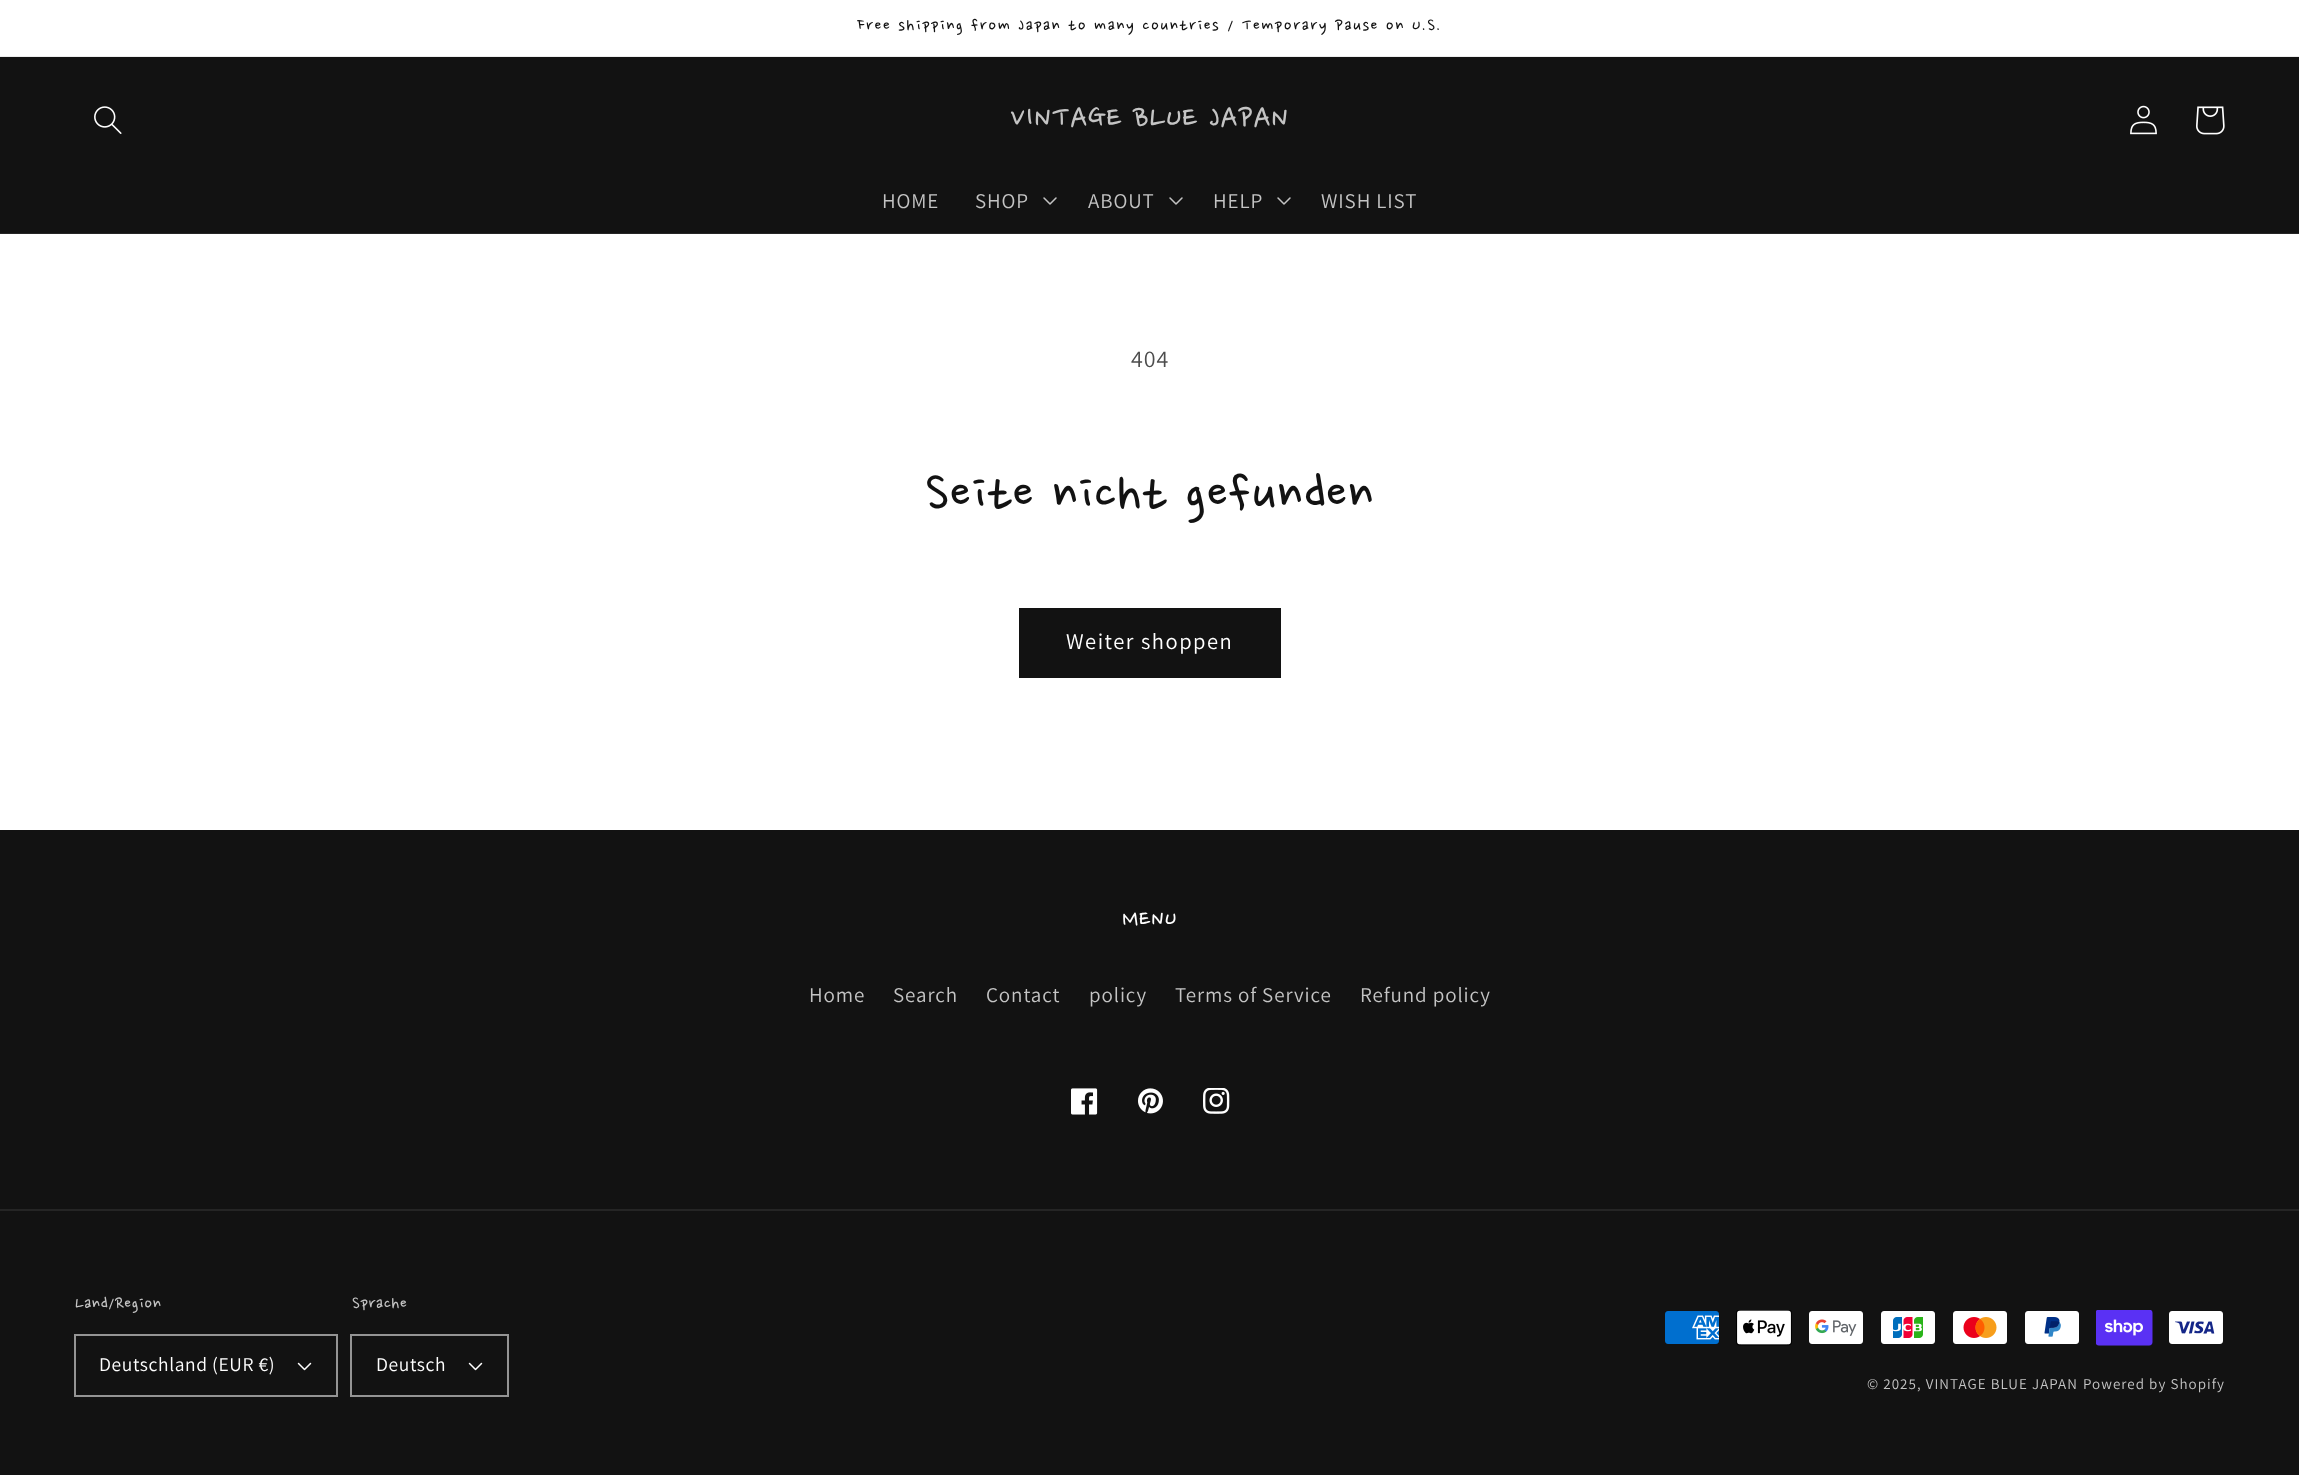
(async () => {
    const canvas = document.querySelector("canvas");
    canvas.width = 2299;
    canvas.height = 1475;
    const context = canvas.getContext("2d");
    context.miterLimit = 4;
    context.fontKerning = "normal";
    function write(s, x, y, font, color) {
        context.font = font;
        context.fillStyle = color;
        context.fillText(s, x, y);
    }
    function block(x, y, w, h, color) {
        context.fillStyle = color;
        context.fillRect(x, y, w, h);
    }
    async function photo(src, x, y, w, h) {
        const img = new Image();
        img.src = src;
        await img.decode();
        context.drawImage(img, x, y, w, h);
    }

    block(0, 0, 2299, 1475, "rgb(255, 255, 255)");
    block(0, 56, 2299, 1, "rgb(236, 236, 236)");
    context.letterSpacing = "1.5px";
    write("Free shipping from Japan to many countries / Temporary Pause on U.S.", 857, 32, "19.5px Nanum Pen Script", "rgb(18, 18, 18)");
    block(0, 57, 2299, 176, "rgb(18, 18, 18)");
    block(0, 233, 2299, 1, "rgb(37, 37, 37)");
    await photo("media/1.png", 94, 106, 28, 28);
    context.letterSpacing = "0.9px";
    write("VINTAGE BLUE JAPAN", 1010, 130, "36px Nanum Pen Script", "rgb(196, 196, 196)");
    await photo("media/2.png", 2130, 105, 27, 30);
    await photo("media/3.png", 2196, 106, 29, 29);
    write("HOME", 882, 208, "21px Assistant", "rgb(196, 196, 196)");
    write("SHOP", 975, 208, "21px Assistant", "rgb(196, 196, 196)");
    await photo("media/4.png", 1043, 197, 14, 8);
    write("ABOUT", 1088, 208, "21px Assistant", "rgb(196, 196, 196)");
    await photo("media/4.png", 1169, 197, 14, 8);
    write("HELP", 1213, 208, "21px Assistant", "rgb(196, 196, 196)");
    await photo("media/4.png", 1277, 197, 14, 8);
    write("WISH LIST", 1321, 208, "21px Assistant", "rgb(196, 196, 196)");
    write("404", 1131, 367, "24px Assistant", "rgb(77, 77, 77)");
    write("Seite nicht gefunden", 925, 514, "60px Nanum Pen Script", "rgb(18, 18, 18)");
    context.strokeStyle = "rgb(18, 18, 18)";
    context.lineWidth = 2;
    context.strokeRect(1020, 609, 260, 68);
    block(1021, 610, 258, 66, "rgb(18, 18, 18)");
    context.letterSpacing = "1.5px";
    write("Weiter shoppen", 1066, 649, "22.5px Assistant", "rgb(255, 255, 255)");
    block(0, 830, 2299, 645, "rgb(18, 18, 18)");
    context.letterSpacing = "0.9px";
    write("MENU", 1122, 928, "27px Nanum Pen Script", "rgb(255, 255, 255)");
    write("Home", 809, 1002, "21px Assistant", "rgb(196, 196, 196)");
    write("Search", 893, 1002, "21px Assistant", "rgb(196, 196, 196)");
    write("Contact", 986, 1002, "21px Assistant", "rgb(196, 196, 196)");
    write("policy", 1089, 1002, "21px Assistant", "rgb(196, 196, 196)");
    write("Terms of Service", 1175, 1002, "21px Assistant", "rgb(196, 196, 196)");
    write("Refund policy", 1360, 1002, "21px Assistant", "rgb(196, 196, 196)");
    await photo("media/5.png", 1071, 1088, 27, 27);
    await photo("media/6.png", 1138, 1088, 25, 26);
    await photo("media/7.png", 1203, 1088, 27, 26);
    block(0, 1209, 2299, 2, "rgb(37, 37, 37)");
    context.letterSpacing = "0.6px";
    write("Land/Region", 75, 1310, "19.5px Nanum Pen Script", "rgb(196, 196, 196)");
    context.strokeStyle = "rgb(148, 148, 148)";
    context.strokeRect(75, 1335, 262, 61);
    write("Deutschland (EUR €)", 99, 1371, "19.5px Assistant", "rgb(255, 255, 255)");
    await photo("media/8.png", 297, 1362, 15, 9);
    write("Sprache", 352, 1310, "19.5px Nanum Pen Script", "rgb(196, 196, 196)");
    context.strokeRect(351, 1335, 157, 61);
    write("Deutsch", 376, 1371, "19.5px Assistant", "rgb(255, 255, 255)");
    await photo("media/8.png", 468, 1362, 15, 9);
    await photo("media/9.png", 1665, 1311, 54, 33);
    await photo("media/10.png", 1736, 1310, 56, 36);
    await photo("media/11.png", 1809, 1311, 54, 33);
    await photo("media/12.png", 1881, 1311, 54, 33);
    await photo("media/13.png", 1953, 1311, 54, 33);
    await photo("media/14.png", 2025, 1311, 54, 33);
    await photo("media/15.png", 2096, 1310, 57, 36);
    await photo("media/16.png", 2169, 1311, 54, 33);
    context.letterSpacing = "1.05px";
    write("© 2025, VINTAGE BLUE JAPAN", 1867, 1389, "15px Assistant", "rgb(196, 196, 196)");
    write("Powered by Shopify", 2083, 1389, "15px Assistant", "rgb(196, 196, 196)");
})();
